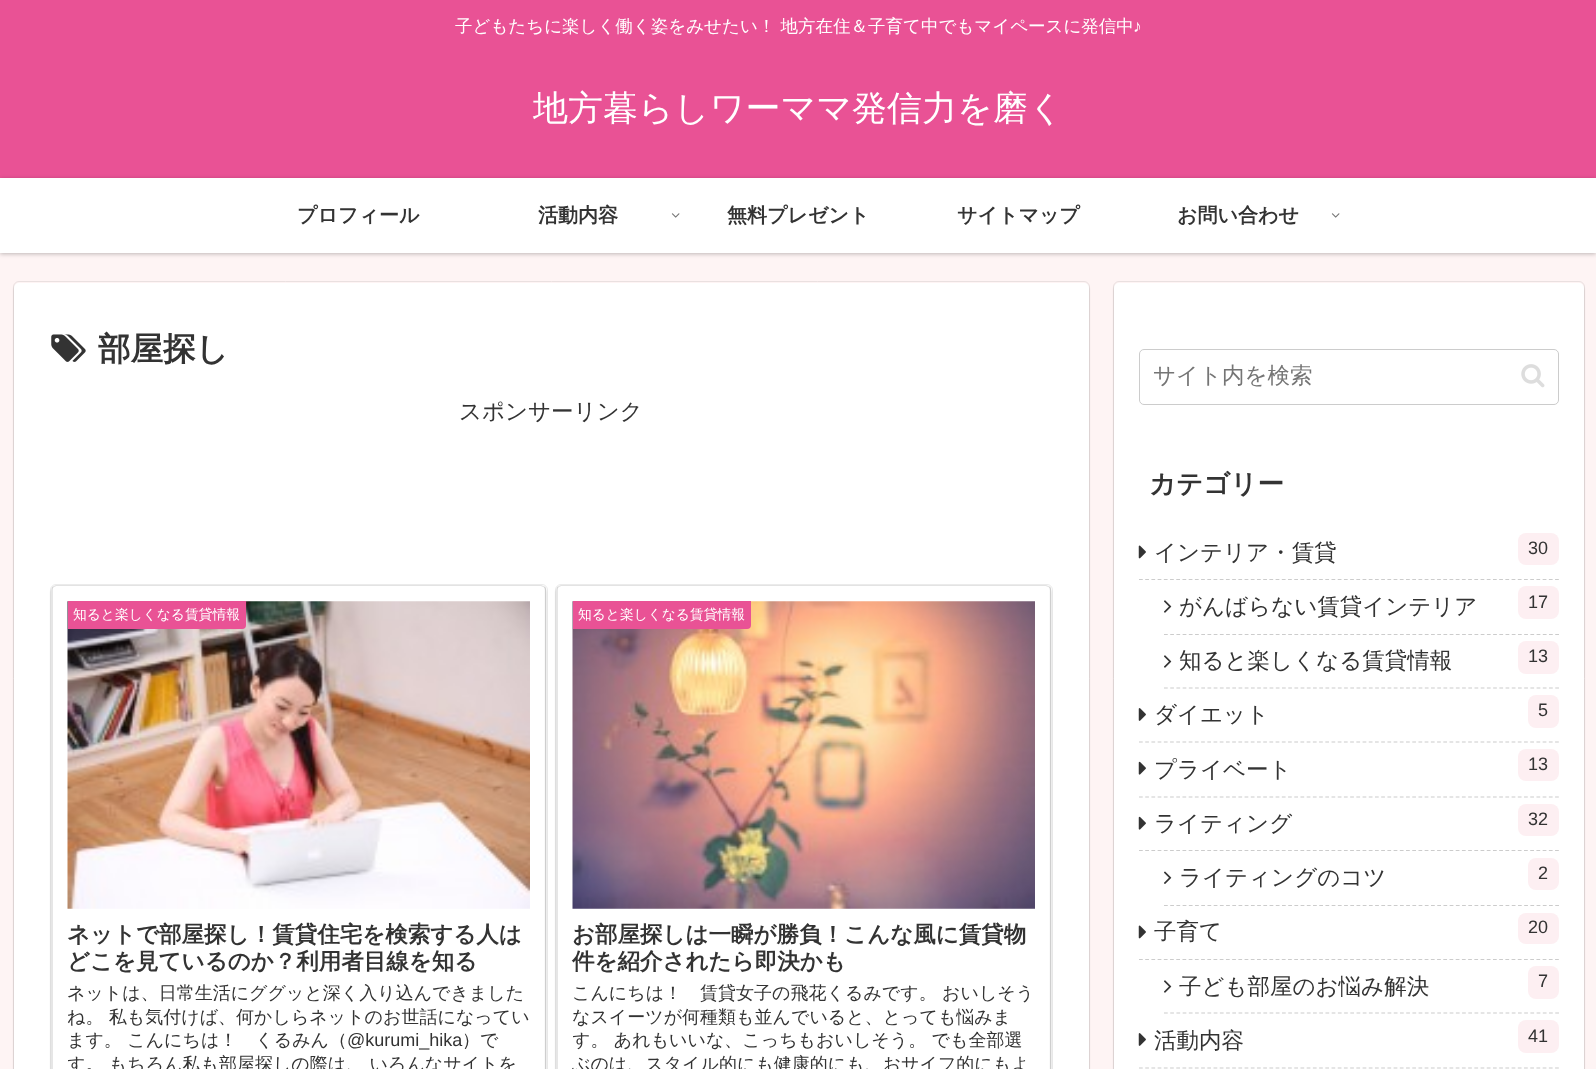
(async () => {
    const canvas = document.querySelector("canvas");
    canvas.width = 1596;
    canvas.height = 1069;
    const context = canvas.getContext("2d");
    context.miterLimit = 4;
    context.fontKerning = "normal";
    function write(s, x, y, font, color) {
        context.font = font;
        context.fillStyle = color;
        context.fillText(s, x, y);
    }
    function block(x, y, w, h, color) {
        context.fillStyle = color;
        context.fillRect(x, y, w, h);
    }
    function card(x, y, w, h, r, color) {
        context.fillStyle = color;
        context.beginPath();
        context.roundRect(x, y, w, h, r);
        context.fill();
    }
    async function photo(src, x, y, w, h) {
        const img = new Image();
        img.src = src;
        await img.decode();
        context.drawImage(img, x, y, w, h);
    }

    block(0, 0, 1596, 1069, "rgb(254, 244, 244)");
    block(0, 0, 1596, 178, "rgb(233, 82, 149)");
    write("子どもたちに楽しく働く姿をみせたい！ 地方在住＆子育て中でもマイペースに発信中", 455, 32, "500 17.5px WenQuanYi Zen Hei", "rgb(255, 255, 255)");
    write("♪", 1133, 32, "17.5px Liberation Sans", "rgb(255, 255, 255)");
    write("地方暮らしワーママ発信力を磨く", 533, 120, "500 35px WenQuanYi Zen Hei", "rgb(255, 255, 255)");
    context.fillStyle = "rgba(0, 0, 0, 0.25)";
    context.filter = "blur(2px)";
    context.beginPath();
    context.rect(0, 179, 1596, 75);
    context.fill();
    context.filter = "none";
    block(0, 178, 1596, 75, "rgb(255, 255, 255)");
    write("プロフィール", 297, 222, "bold 20px WenQuanYi Zen Hei", "rgb(51, 51, 51)");
    write("活動内容", 538, 222, "bold 20px WenQuanYi Zen Hei", "rgb(51, 51, 51)");
    await photo("media/1.png", 671, 213, 9, 5);
    write("無料プレゼント", 727, 222, "bold 20px WenQuanYi Zen Hei", "rgb(51, 51, 51)");
    write("サイトマップ", 957, 222, "bold 20px WenQuanYi Zen Hei", "rgb(51, 51, 51)");
    write("お問い合わせ", 1177, 222, "bold 20px WenQuanYi Zen Hei", "rgb(51, 51, 51)");
    await photo("media/1.png", 1331, 213, 9, 5);
    context.beginPath();
    context.roundRect(13.5, 281.5, 1076, 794, 5.5);
    context.strokeStyle = "rgb(234, 224, 224)";
    context.stroke();
    context.fillStyle = "rgba(0, 0, 0, 0.16)";
    context.filter = "blur(1px)";
    context.beginPath();
    context.roundRect(14, 285, 1075, 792, 5);
    context.fill();
    context.filter = "none";
    card(14, 283, 1075, 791, 5, "rgb(255, 255, 255)");
    await photo("media/2.png", 51, 334, 35, 28);
    write("部屋探し", 98, 360, "bold 32.5px WenQuanYi Zen Hei", "rgb(51, 51, 51)");
    write("スポンサーリンク", 459, 419, "500 22.5px WenQuanYi Zen Hei", "rgb(51, 51, 51)");
    context.beginPath();
    context.roundRect(50.5, 584.5, 497, 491, 5.5);
    context.strokeStyle = "rgb(235, 235, 235)";
    context.stroke();
    context.save();
    context.beginPath();
    context.moveTo(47, 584);
    context.lineTo(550, 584);
    context.lineTo(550, 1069);
    context.lineTo(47, 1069);
    context.closePath();
    context.moveTo(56, 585);
    context.lineTo(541, 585);
    context.bezierCurveTo(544, 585, 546, 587, 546, 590);
    context.lineTo(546, 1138);
    context.bezierCurveTo(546, 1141, 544, 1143, 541, 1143);
    context.lineTo(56, 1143);
    context.bezierCurveTo(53, 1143, 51, 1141, 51, 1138);
    context.lineTo(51, 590);
    context.bezierCurveTo(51, 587, 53, 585, 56, 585);
    context.closePath();
    context.clip("evenodd");
    context.fillStyle = "rgba(0, 0, 0, 0.16)";
    context.filter = "blur(1px)";
    context.beginPath();
    context.roundRect(51, 588, 495, 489, 5);
    context.fill();
    context.filter = "none";
    context.restore();
    context.beginPath();
    context.moveTo(53, 587);
    context.lineTo(56, 585.5);
    context.lineTo(541, 585.5);
    context.lineTo(544.5, 587);
    context.strokeStyle = "rgb(227, 227, 227)";
    context.lineWidth = 1.2;
    context.stroke();
    context.beginPath();
    context.moveTo(544.5, 587);
    context.bezierCurveTo(545, 587.5, 545.5, 589, 545.5, 590);
    context.lineTo(545.5, 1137.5);
    context.bezierCurveTo(545.5, 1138.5, 545, 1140, 544.5, 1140.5);
    context.strokeStyle = "rgb(206, 206, 206)";
    context.stroke();
    context.beginPath();
    context.moveTo(53, 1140.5);
    context.bezierCurveTo(52.5, 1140, 52, 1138.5, 52, 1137.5);
    context.lineTo(52, 590);
    context.bezierCurveTo(52, 589, 52.5, 587.5, 53, 587);
    context.strokeStyle = "rgb(214, 214, 214)";
    context.stroke();
    await photo("media/3.png", 67, 601, 463, 308);
    context.fillStyle = "rgb(233, 82, 149)";
    context.beginPath();
    context.roundRect(68, 601, 178, 28, [0, 0, 4, 0]);
    context.fill();
    write("知ると楽しくなる賃貸情報", 73, 619, "500 13.75px WenQuanYi Zen Hei", "rgb(255, 255, 255)");
    write("ネットで部屋探し！賃貸住宅を検索する人は", 67, 942, "bold 22.5px WenQuanYi Zen Hei", "rgb(51, 51, 51)");
    write("どこを見ているのか？利用者目線を知る", 67, 969, "bold 22.5px WenQuanYi Zen Hei", "rgb(51, 51, 51)");
    write("ネットは、日常生活にググッと深く入り込んできました", 67, 999, "500 18px WenQuanYi Zen Hei", "rgb(51, 51, 51)");
    write("ね。 私も気付けば、何かしらネットのお世話になってい", 67, 1023, "500 18px WenQuanYi Zen Hei", "rgb(51, 51, 51)");
    write("ます。 こんにちは！　くるみん（", 67, 1046, "500 18px WenQuanYi Zen Hei", "rgb(51, 51, 51)");
    write("@kurumi_hika", 347, 1046, "18px Liberation Sans", "rgb(51, 51, 51)");
    write("）で", 462, 1046, "500 18px WenQuanYi Zen Hei", "rgb(51, 51, 51)");
    context.save();
    context.beginPath();
    context.rect(68, 983, 462, 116);
    context.clip();
    write("す。 もちろん私も部屋探しの際は、 いろんなサイトを", 67, 1070, "500 18px WenQuanYi Zen Hei", "rgb(51, 51, 51)");
    context.restore();
    context.beginPath();
    context.roundRect(555.5, 584.5, 497, 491, 5.5);
    context.strokeStyle = "rgb(235, 235, 235)";
    context.lineWidth = 1;
    context.stroke();
    context.save();
    context.beginPath();
    context.moveTo(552, 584);
    context.lineTo(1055, 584);
    context.lineTo(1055, 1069);
    context.lineTo(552, 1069);
    context.closePath();
    context.moveTo(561, 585);
    context.lineTo(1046, 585);
    context.bezierCurveTo(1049, 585, 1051, 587, 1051, 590);
    context.lineTo(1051, 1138);
    context.bezierCurveTo(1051, 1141, 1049, 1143, 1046, 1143);
    context.lineTo(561, 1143);
    context.bezierCurveTo(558, 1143, 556, 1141, 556, 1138);
    context.lineTo(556, 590);
    context.bezierCurveTo(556, 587, 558, 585, 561, 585);
    context.closePath();
    context.clip("evenodd");
    context.fillStyle = "rgba(0, 0, 0, 0.16)";
    context.filter = "blur(1px)";
    context.beginPath();
    context.roundRect(556, 588, 495, 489, 5);
    context.fill();
    context.filter = "none";
    context.restore();
    context.beginPath();
    context.moveTo(558, 587);
    context.lineTo(561, 585.5);
    context.lineTo(1046, 585.5);
    context.lineTo(1049.5, 587);
    context.strokeStyle = "rgb(227, 227, 227)";
    context.lineWidth = 1.2;
    context.stroke();
    context.beginPath();
    context.moveTo(1049.5, 587);
    context.bezierCurveTo(1050, 587.5, 1050.5, 589, 1050.5, 590);
    context.lineTo(1050.5, 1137.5);
    context.bezierCurveTo(1050.5, 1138.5, 1050, 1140, 1049.5, 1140.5);
    context.strokeStyle = "rgb(206, 206, 206)";
    context.stroke();
    context.beginPath();
    context.moveTo(558, 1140.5);
    context.bezierCurveTo(557.5, 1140, 557, 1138.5, 557, 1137.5);
    context.lineTo(557, 590);
    context.bezierCurveTo(557, 589, 557.5, 587.5, 558, 587);
    context.strokeStyle = "rgb(214, 214, 214)";
    context.stroke();
    await photo("media/4.png", 572, 601, 463, 308);
    context.fillStyle = "rgb(233, 82, 149)";
    context.beginPath();
    context.roundRect(573, 601, 178, 28, [0, 0, 4, 0]);
    context.fill();
    write("知ると楽しくなる賃貸情報", 578, 619, "500 13.75px WenQuanYi Zen Hei", "rgb(255, 255, 255)");
    write("お部屋探しは一瞬が勝負！こんな風に賃貸物", 572, 942, "bold 22.5px WenQuanYi Zen Hei", "rgb(51, 51, 51)");
    write("件を紹介されたら即決かも", 572, 969, "bold 22.5px WenQuanYi Zen Hei", "rgb(51, 51, 51)");
    write("こんにちは！　賃貸女子の飛花くるみです。 おいしそう", 572, 999, "500 18px WenQuanYi Zen Hei", "rgb(51, 51, 51)");
    write("なスイーツが何種類も並んでいると、とっても悩みま", 572, 1023, "500 18px WenQuanYi Zen Hei", "rgb(51, 51, 51)");
    context.save();
    context.beginPath();
    context.rect(573, 983, 462, 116);
    context.clip();
    write("す。 あれもいいな、こっちもおいしそう。 でも全部選", 572, 1046, "500 18px WenQuanYi Zen Hei", "rgb(51, 51, 51)");
    context.restore();
    write("ぶのは、スタイル的にも健康的にも、おサイフ的にもよ", 572, 1070, "500 18px WenQuanYi Zen Hei", "rgb(51, 51, 51)");
    context.beginPath();
    context.roundRect(1113.5, 281.5, 471, 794, 5.5);
    context.strokeStyle = "rgb(234, 224, 224)";
    context.lineWidth = 1;
    context.stroke();
    context.fillStyle = "rgba(0, 0, 0, 0.16)";
    context.filter = "blur(1px)";
    context.beginPath();
    context.roundRect(1114, 285, 470, 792, 5);
    context.fill();
    context.filter = "none";
    card(1114, 283, 470, 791, 5, "rgb(255, 255, 255)");
    context.beginPath();
    context.roundRect(1139.5, 349.5, 419, 55, 4.5);
    context.strokeStyle = "rgb(204, 204, 204)";
    context.stroke();
    write("サイト内を検索", 1153, 383, "500 22.5px WenQuanYi Zen Hei", "rgb(117, 117, 117)");
    await photo("media/5.png", 1521, 364, 24, 24);
    write("カテゴリー", 1149, 493, "bold 26.5px WenQuanYi Zen Hei", "rgb(51, 51, 51)");
    context.beginPath();
    context.moveTo(1139, 579.5);
    context.lineTo(1559, 579.5);
    context.lineWidth = 1.2;
    context.setLineDash([3.75, 2.46]);
    context.stroke();
    await photo("media/6.png", 1138, 545, 8, 14);
    write("インテリア・賃貸", 1154, 560, "500 22.5px WenQuanYi Zen Hei", "rgb(51, 51, 51)");
    card(1518, 533, 41, 32, 8, "rgb(253, 239, 242)");
    write("30", 1528, 554, "18px Liberation Sans", "rgb(51, 51, 51)");
    context.beginPath();
    context.moveTo(1164, 634.5);
    context.lineTo(1559, 634.5);
    context.stroke();
    await photo("media/7.png", 1164, 600, 8, 13);
    write("がんばらない賃貸インテリア", 1179, 614, "500 22.5px WenQuanYi Zen Hei", "rgb(51, 51, 51)");
    card(1518, 586, 41, 33, 8, "rgb(253, 239, 242)");
    write("17", 1528, 608, "18px Liberation Sans", "rgb(51, 51, 51)");
    context.beginPath();
    context.moveTo(1164, 688);
    context.lineTo(1559, 688);
    context.stroke();
    await photo("media/7.png", 1164, 655, 8, 13);
    write("知ると楽しくなる賃貸情報", 1179, 668, "500 22.5px WenQuanYi Zen Hei", "rgb(51, 51, 51)");
    card(1518, 641, 41, 33, 8, "rgb(253, 239, 242)");
    write("13", 1528, 662, "18px Liberation Sans", "rgb(51, 51, 51)");
    context.beginPath();
    context.moveTo(1139, 742);
    context.lineTo(1559, 742);
    context.stroke();
    await photo("media/8.png", 1138, 708, 8, 13);
    write("ダイエット", 1154, 722, "500 22.5px WenQuanYi Zen Hei", "rgb(51, 51, 51)");
    card(1528, 695, 31, 33, 8, "rgb(253, 239, 242)");
    write("5", 1538, 716, "18px Liberation Sans", "rgb(51, 51, 51)");
    context.beginPath();
    context.moveTo(1139, 797);
    context.lineTo(1559, 797);
    context.stroke();
    await photo("media/9.png", 1138, 761, 8, 14);
    write("プライベート", 1154, 777, "500 22.5px WenQuanYi Zen Hei", "rgb(51, 51, 51)");
    card(1518, 749, 41, 32, 8, "rgb(253, 239, 242)");
    write("13", 1528, 770, "18px Liberation Sans", "rgb(51, 51, 51)");
    context.beginPath();
    context.moveTo(1139, 850.5);
    context.lineTo(1559, 850.5);
    context.stroke();
    await photo("media/9.png", 1138, 816, 8, 14);
    write("ライティング", 1154, 831, "500 22.5px WenQuanYi Zen Hei", "rgb(51, 51, 51)");
    card(1518, 804, 41, 32, 8, "rgb(253, 239, 242)");
    write("32", 1528, 825, "18px Liberation Sans", "rgb(51, 51, 51)");
    context.beginPath();
    context.moveTo(1164, 905.5);
    context.lineTo(1559, 905.5);
    context.stroke();
    await photo("media/10.png", 1164, 871, 8, 13);
    write("ライティングのコツ", 1179, 885, "500 22.5px WenQuanYi Zen Hei", "rgb(51, 51, 51)");
    card(1528, 858, 31, 32, 8, "rgb(253, 239, 242)");
    write("2", 1538, 879, "18px Liberation Sans", "rgb(51, 51, 51)");
    context.beginPath();
    context.moveTo(1139, 959.5);
    context.lineTo(1559, 959.5);
    context.stroke();
    await photo("media/6.png", 1138, 925, 8, 14);
    write("子育て", 1154, 939, "500 22.5px WenQuanYi Zen Hei", "rgb(51, 51, 51)");
    card(1518, 913, 41, 31, 8, "rgb(253, 239, 242)");
    write("20", 1528, 933, "18px Liberation Sans", "rgb(51, 51, 51)");
    context.beginPath();
    context.moveTo(1164, 1013);
    context.lineTo(1559, 1013);
    context.stroke();
    await photo("media/7.png", 1164, 980, 8, 13);
    write("子ども部屋のお悩み解決", 1179, 994, "500 22.5px WenQuanYi Zen Hei", "rgb(51, 51, 51)");
    card(1528, 966, 31, 33, 8, "rgb(253, 239, 242)");
    write("7", 1538, 987, "18px Liberation Sans", "rgb(51, 51, 51)");
    context.beginPath();
    context.moveTo(1139, 1068);
    context.lineTo(1559, 1068);
    context.stroke();
    await photo("media/8.png", 1138, 1033, 8, 13);
    write("活動内容", 1154, 1048, "500 22.5px WenQuanYi Zen Hei", "rgb(51, 51, 51)");
    card(1518, 1020, 41, 33, 8, "rgb(253, 239, 242)");
    write("41", 1528, 1042, "18px Liberation Sans", "rgb(51, 51, 51)");
})();
